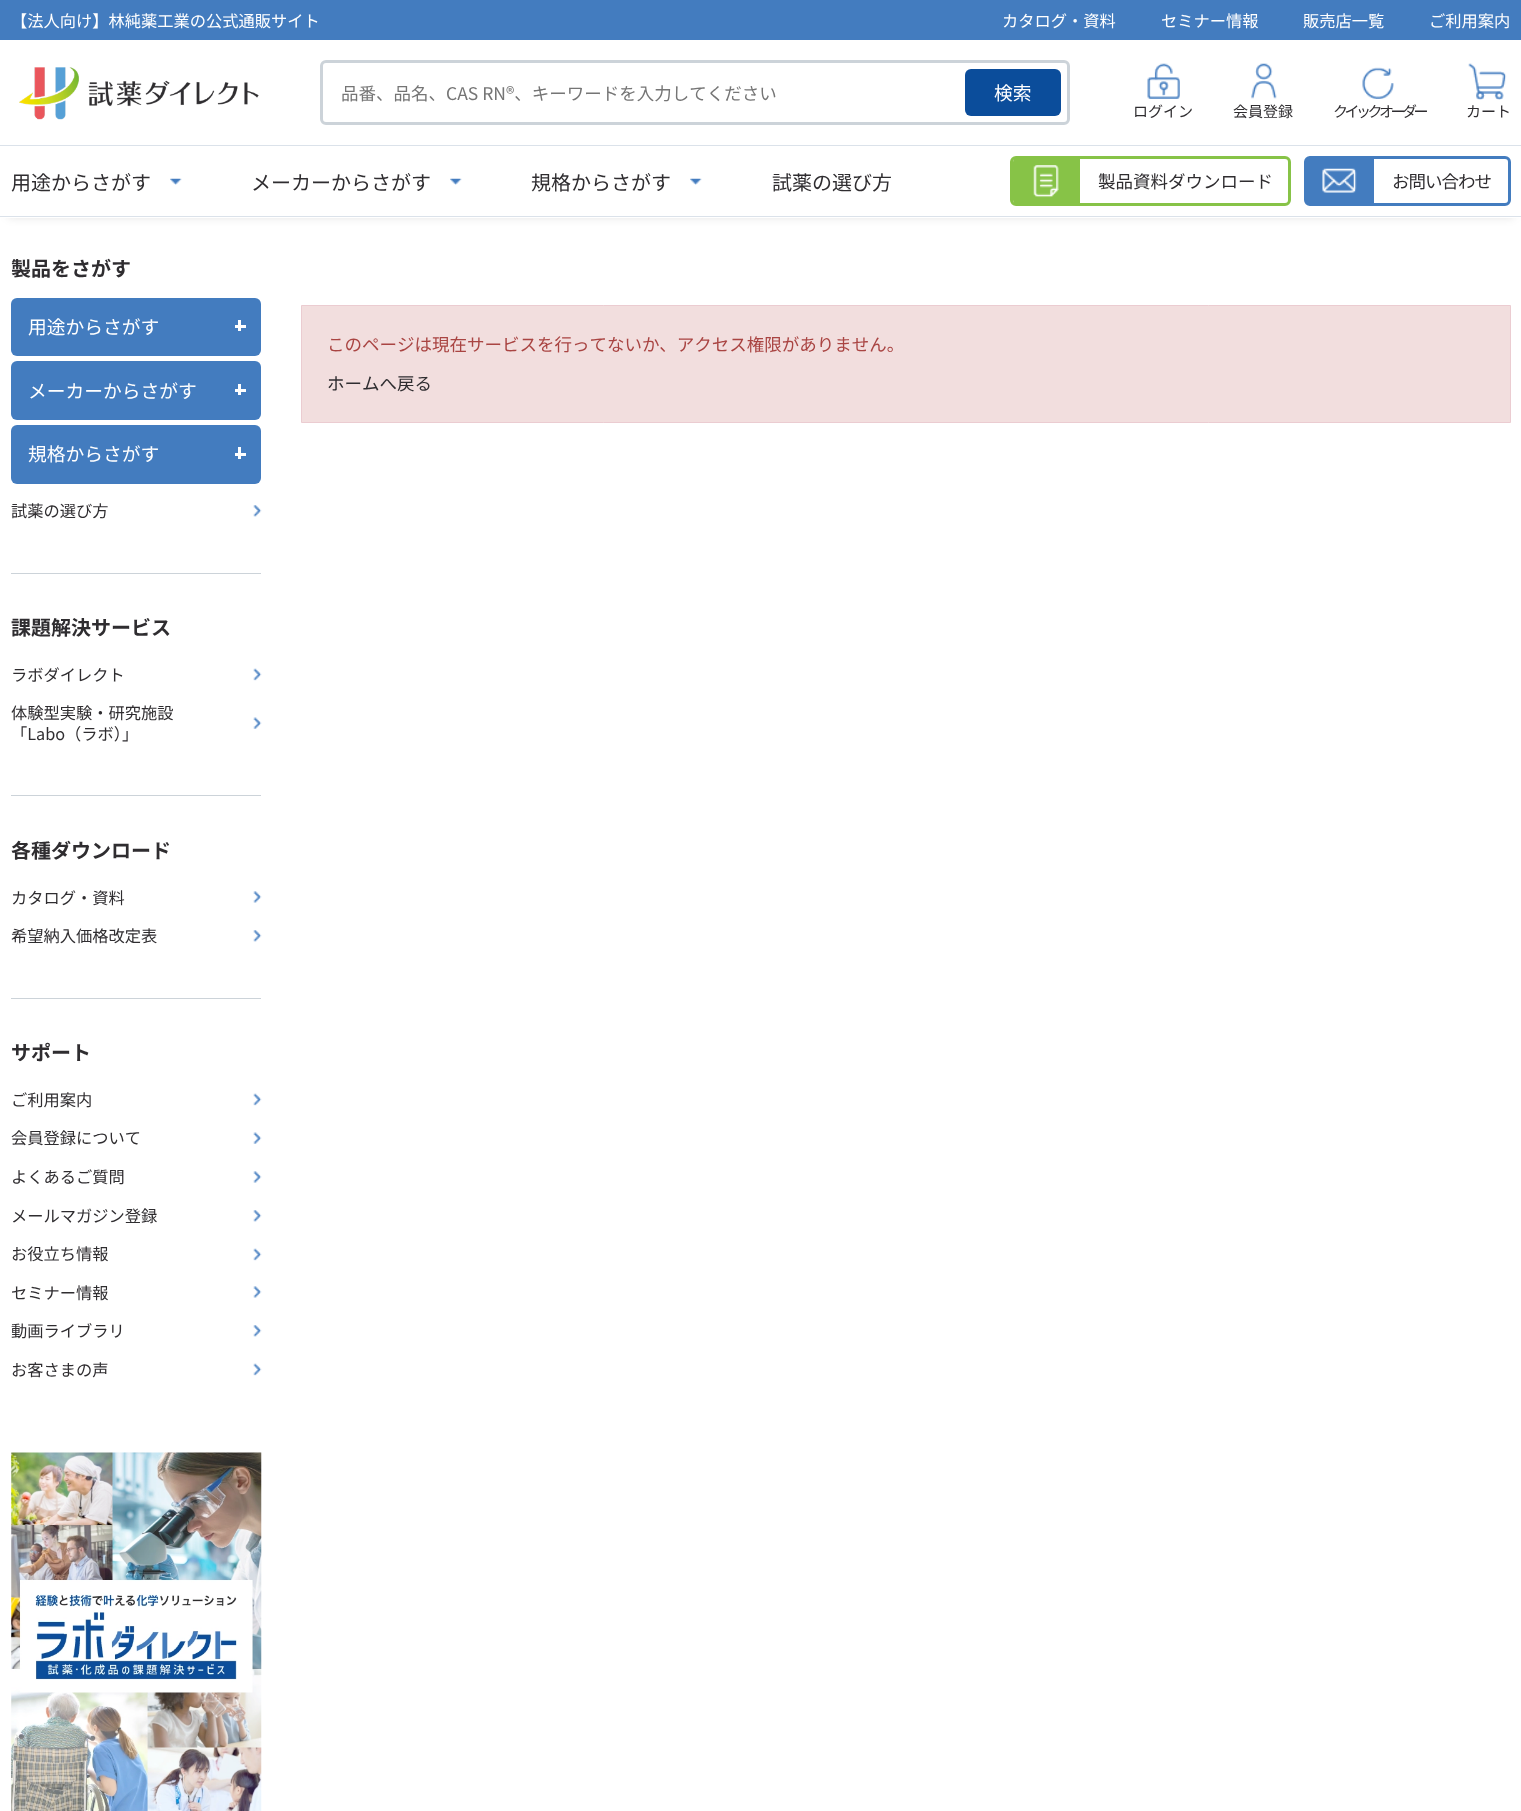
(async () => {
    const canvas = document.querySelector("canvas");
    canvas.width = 1521;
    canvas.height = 1811;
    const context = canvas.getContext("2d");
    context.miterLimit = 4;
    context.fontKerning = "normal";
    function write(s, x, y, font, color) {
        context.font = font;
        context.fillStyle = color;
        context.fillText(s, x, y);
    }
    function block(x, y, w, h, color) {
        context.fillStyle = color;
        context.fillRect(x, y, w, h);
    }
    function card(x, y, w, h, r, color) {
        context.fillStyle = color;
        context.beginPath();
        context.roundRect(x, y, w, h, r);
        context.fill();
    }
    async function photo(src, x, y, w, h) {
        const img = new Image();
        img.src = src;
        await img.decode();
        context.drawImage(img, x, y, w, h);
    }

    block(0, 0, 1521, 1811, "rgb(255, 255, 255)");
    block(0, 0, 1521, 40, "rgb(67, 124, 191)");
    write("【法人向け】林純薬工業の公式通販サイト", 11, 27, "16.25px Noto Sans JP", "rgb(255, 255, 255)");
    write("カタログ・資料", 1002, 27, "16.25px Noto Sans JP", "rgb(255, 255, 255)");
    write("セミナー情報", 1161, 27, "16.25px Noto Sans JP", "rgb(255, 255, 255)");
    write("販売店一覧", 1303, 27, "16.25px Noto Sans JP", "rgb(255, 255, 255)");
    write("ご利用案内", 1429, 27, "16.25px Noto Sans JP", "rgb(255, 255, 255)");
    await photo("media/1.png", 19, 67, 240, 53);
    context.beginPath();
    context.roundRect(321.5, 61.5, 747, 62, 4.5);
    context.strokeStyle = "rgb(204, 211, 217)";
    context.lineWidth = 3;
    context.stroke();
    write("品番、品名、CAS RN®、キーワードを入力してください", 341, 100, "17.5px Noto Sans JP", "rgb(117, 117, 117)");
    card(965, 69, 96, 47, 6, "rgb(11, 77, 155)");
    write("検索", 994, 100, "18.75px Noto Sans JP", "rgb(255, 255, 255)");
    await photo("media/2.png", 1147, 63, 33, 36);
    write("ログイン", 1133, 117, "15px Noto Sans JP", "rgb(47, 45, 48)");
    await photo("media/3.png", 1251, 63, 26, 36);
    write("会員登録", 1233, 117, "15px Noto Sans JP", "rgb(47, 45, 48)");
    await photo("media/4.png", 1362, 67, 32, 32);
    context.letterSpacing = "-3.5px";
    write("クイックオーダー", 1333, 117, "15px Noto Sans JP", "rgb(47, 45, 48)");
    await photo("media/5.png", 1468, 63, 39, 37);
    context.letterSpacing = "0px";
    write("カート", 1466, 117, "15px Noto Sans JP", "rgb(47, 45, 48)");
    context.save();
    context.beginPath();
    context.moveTo(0, 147);
    context.lineTo(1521, 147);
    context.lineTo(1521, 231);
    context.lineTo(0, 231);
    context.closePath();
    context.moveTo(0, 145);
    context.lineTo(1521, 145);
    context.lineTo(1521, 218);
    context.lineTo(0, 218);
    context.closePath();
    context.clip("evenodd");
    context.fillStyle = "rgba(0, 0, 0, 0.1)";
    context.filter = "blur(4px)";
    context.beginPath();
    context.rect(8, 160, 1506, 58);
    context.fill();
    context.filter = "none";
    context.restore();
    block(0, 145, 1521, 1, "rgb(219, 226, 234)");
    block(0, 216, 1521, 1, "rgb(219, 226, 234)");
    write("用途からさがす", 11, 190, "20px Noto Sans JP", "rgb(47, 45, 48)");
    await photo("media/6.png", 170, 178, 12, 7);
    write("メーカーからさがす", 251, 190, "20px Noto Sans JP", "rgb(47, 45, 48)");
    await photo("media/7.png", 450, 178, 12, 7);
    write("規格からさがす", 531, 190, "20px Noto Sans JP", "rgb(47, 45, 48)");
    await photo("media/7.png", 690, 178, 12, 7);
    write("試薬の選び方", 772, 190, "20px Noto Sans JP", "rgb(47, 45, 48)");
    context.beginPath();
    context.roundRect(1011.5, 157.5, 278, 47, 4.5);
    context.strokeStyle = "rgb(135, 195, 71)";
    context.stroke();
    context.fillStyle = "rgb(135, 195, 71)";
    context.beginPath();
    context.roundRect(1013, 156, 67, 50, [6, 0, 0, 6]);
    context.fill();
    await photo("media/8.png", 1033, 165, 26, 33);
    write("製品資料ダウンロード", 1098, 188, "17.5px Noto Sans JP", "rgb(47, 45, 48)");
    context.beginPath();
    context.roundRect(1305.5, 157.5, 204, 47, 4.5);
    context.strokeStyle = "rgb(67, 124, 191)";
    context.stroke();
    context.fillStyle = "rgb(67, 124, 191)";
    context.beginPath();
    context.roundRect(1306, 156, 68, 50, [6, 0, 0, 6]);
    context.fill();
    await photo("media/9.png", 1322, 168, 35, 25);
    context.letterSpacing = "-1px";
    write("お問い合わせ", 1392, 188, "17.5px Noto Sans JP", "rgb(47, 45, 48)");
    context.letterSpacing = "0px";
    write("製品をさがす", 11, 276, "bold 20px Noto Sans JP", "rgb(47, 45, 48)");
    card(11, 298, 250, 58, 6, "rgb(67, 124, 191)");
    write("用途からさがす", 28, 334, "18.75px Noto Sans JP", "rgb(255, 255, 255)");
    block(238, 320, 3, 11, "rgb(255, 255, 255)");
    block(235, 325, 11, 3, "rgb(255, 255, 255)");
    card(11, 361, 250, 59, 6, "rgb(67, 124, 191)");
    write("メーカーからさがす", 28, 398, "18.75px Noto Sans JP", "rgb(255, 255, 255)");
    block(238, 384, 3, 11, "rgb(255, 255, 255)");
    block(235, 389, 11, 3, "rgb(255, 255, 255)");
    card(11, 425, 250, 59, 6, "rgb(67, 124, 191)");
    write("規格からさがす", 28, 461, "18.75px Noto Sans JP", "rgb(255, 255, 255)");
    block(238, 447, 3, 12, "rgb(255, 255, 255)");
    block(235, 453, 11, 3, "rgb(255, 255, 255)");
    write("試薬の選び方", 11, 517, "16.25px Noto Sans JP", "rgb(47, 45, 48)");
    await photo("media/10.png", 253, 505, 9, 12);
    block(11, 573, 250, 1, "rgb(204, 211, 217)");
    write("課題解決サービス", 11, 635, "bold 20px Noto Sans JP", "rgb(47, 45, 48)");
    write("ラボダイレクト", 11, 681, "16.25px Noto Sans JP", "rgb(47, 45, 48)");
    await photo("media/11.png", 253, 668, 9, 13);
    write("体験型実験・研究施設", 11, 719, "16.25px Noto Sans JP", "rgb(47, 45, 48)");
    await photo("media/12.png", 253, 717, 9, 12);
    write("「Labo（ラボ）」", 11, 740, "16.25px Noto Sans JP", "rgb(47, 45, 48)");
    block(11, 795, 250, 1, "rgb(204, 211, 217)");
    write("各種ダウンロード", 11, 858, "bold 20px Noto Sans JP", "rgb(47, 45, 48)");
    write("カタログ・資料", 11, 904, "16.25px Noto Sans JP", "rgb(47, 45, 48)");
    await photo("media/13.png", 253, 891, 9, 12);
    write("希望納入価格改定表", 11, 942, "16.25px Noto Sans JP", "rgb(47, 45, 48)");
    await photo("media/10.png", 253, 930, 9, 12);
    block(11, 998, 250, 1, "rgb(204, 211, 217)");
    write("サポート", 11, 1060, "bold 20px Noto Sans JP", "rgb(47, 45, 48)");
    write("ご利用案内", 11, 1106, "16.25px Noto Sans JP", "rgb(47, 45, 48)");
    await photo("media/11.png", 253, 1093, 9, 13);
    write("会員登録について", 11, 1144, "16.25px Noto Sans JP", "rgb(47, 45, 48)");
    await photo("media/12.png", 253, 1132, 9, 12);
    write("よくあるご質問", 11, 1183, "16.25px Noto Sans JP", "rgb(47, 45, 48)");
    await photo("media/14.png", 253, 1171, 9, 12);
    write("メールマガジン登録", 11, 1222, "16.25px Noto Sans JP", "rgb(47, 45, 48)");
    await photo("media/10.png", 253, 1210, 9, 12);
    write("お役立ち情報", 11, 1260, "16.25px Noto Sans JP", "rgb(47, 45, 48)");
    await photo("media/11.png", 253, 1248, 9, 13);
    write("セミナー情報", 11, 1299, "16.25px Noto Sans JP", "rgb(47, 45, 48)");
    await photo("media/13.png", 253, 1286, 9, 12);
    write("動画ライブラリ", 11, 1337, "16.25px Noto Sans JP", "rgb(47, 45, 48)");
    await photo("media/10.png", 253, 1325, 9, 12);
    write("お客さまの声", 11, 1376, "16.25px Noto Sans JP", "rgb(47, 45, 48)");
    await photo("media/11.png", 253, 1363, 9, 13);
    await photo("media/15.png", 11, 1452, 251, 359);
    context.fillStyle = "rgb(242, 222, 222)";
    context.beginPath();
    context.rect(301.5, 305.5, 1209, 117);
    context.fill();
    context.strokeStyle = "rgb(235, 204, 209)";
    context.lineWidth = 1;
    context.stroke();
    write("このページは現在サービスを行ってないか、アクセス権限がありません。", 327, 351, "17.5px Noto Sans JP", "rgb(169, 68, 66)");
    write("ホームへ戻る", 327, 390, "17.5px Noto Sans JP", "rgb(47, 45, 48)");
})();
